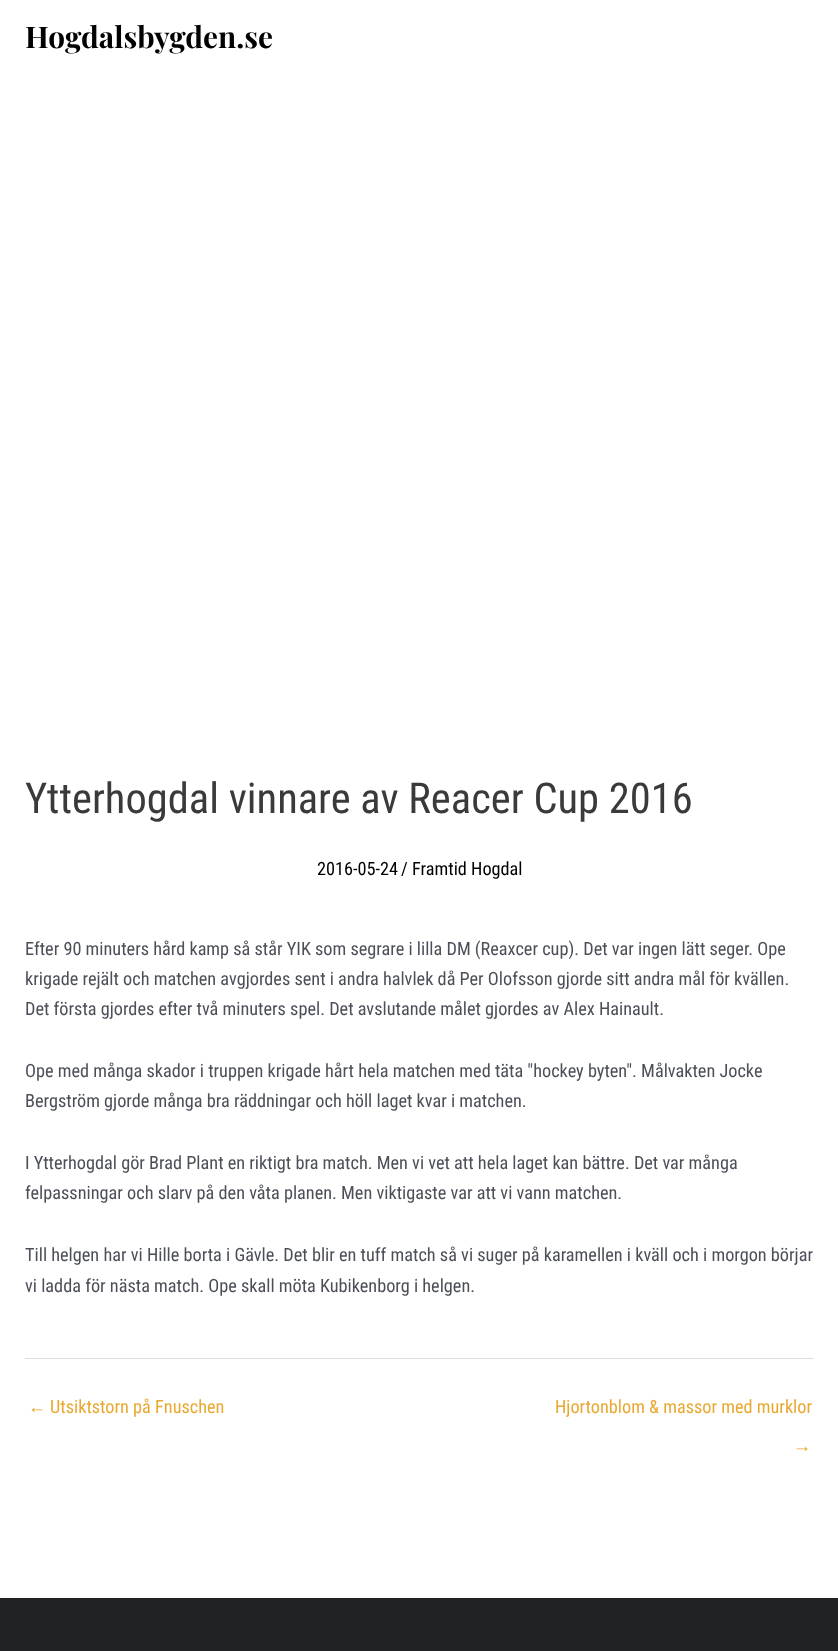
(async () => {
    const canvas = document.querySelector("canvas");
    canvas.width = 838;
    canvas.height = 1651;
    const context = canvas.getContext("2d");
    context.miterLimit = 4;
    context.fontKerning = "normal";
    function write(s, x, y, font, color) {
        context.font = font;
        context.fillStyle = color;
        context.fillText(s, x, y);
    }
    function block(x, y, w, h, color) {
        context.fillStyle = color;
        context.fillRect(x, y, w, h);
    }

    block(0, 0, 838, 1651, "rgb(255, 255, 255)");
    write("Hogdalsbygden.se", 25, 48, "bold 29.75px Playfair Display", "rgb(0, 0, 0)");
    write("Ytterhogdal vinnare av Reacer Cup 2016", 25, 813, "42.5px Roboto Condensed", "rgb(58, 58, 58)");
    write("2016-05-24", 317, 875, "18.25px Roboto Condensed", "rgb(0, 0, 0)");
    write("/", 401, 875, "18.25px Roboto Condensed", "rgb(0, 0, 0)");
    write("Framtid Hogdal", 412, 875, "18.25px Roboto Condensed", "rgb(0, 0, 0)");
    write("Efter 90 minuters hård kamp så står YIK som segrare i lilla DM (Reaxcer cup). Det var ingen lätt seger. Ope", 25, 955, "18.25px Roboto Condensed", "rgb(75, 79, 88)");
    write("krigade rejält och matchen avgjordes sent i andra halvlek då Per Olofsson gjorde sitt andra mål för kvällen.", 25, 985, "18.25px Roboto Condensed", "rgb(75, 79, 88)");
    write("Det första gjordes efter två minuters spel. Det avslutande målet gjordes av Alex Hainault.", 25, 1015, "18.25px Roboto Condensed", "rgb(75, 79, 88)");
    write("Ope med många skador i truppen krigade hårt hela matchen med täta \"hockey byten\". Målvakten Jocke", 25, 1077, "18.25px Roboto Condensed", "rgb(75, 79, 88)");
    write("Bergström gjorde många bra räddningar och höll laget kvar i matchen.", 25, 1107, "18.25px Roboto Condensed", "rgb(75, 79, 88)");
    write("I Ytterhogdal gör Brad Plant en riktigt bra match. Men vi vet att hela laget kan bättre. Det var många", 25, 1169, "18.25px Roboto Condensed", "rgb(75, 79, 88)");
    write("felpassningar och slarv på den våta planen. Men viktigaste var att vi vann matchen.", 25, 1199, "18.25px Roboto Condensed", "rgb(75, 79, 88)");
    write("Till helgen har vi Hille borta i Gävle. Det blir en tuff match så vi suger på karamellen i kväll och i morgon börjar", 25, 1261, "18.25px Roboto Condensed", "rgb(75, 79, 88)");
    write("vi ladda för nästa match. Ope skall möta Kubikenborg i helgen.", 25, 1292, "18.25px Roboto Condensed", "rgb(75, 79, 88)");
    block(25, 1358, 789, 1, "rgb(221, 221, 221)");
    write("←", 28, 1413, "18.25px Liberation Sans", "rgb(233, 168, 48)");
    write("Utsiktstorn på Fnuschen", 50, 1413, "18.25px Roboto Condensed", "rgb(233, 168, 48)");
    write("Hjortonblom & massor med murklor", 555, 1413, "18.25px Roboto Condensed", "rgb(233, 168, 48)");
    write("→", 793, 1452, "18.25px Liberation Sans", "rgb(233, 168, 48)");
    block(0, 1598, 838, 53, "rgb(31, 35, 36)");
})();
